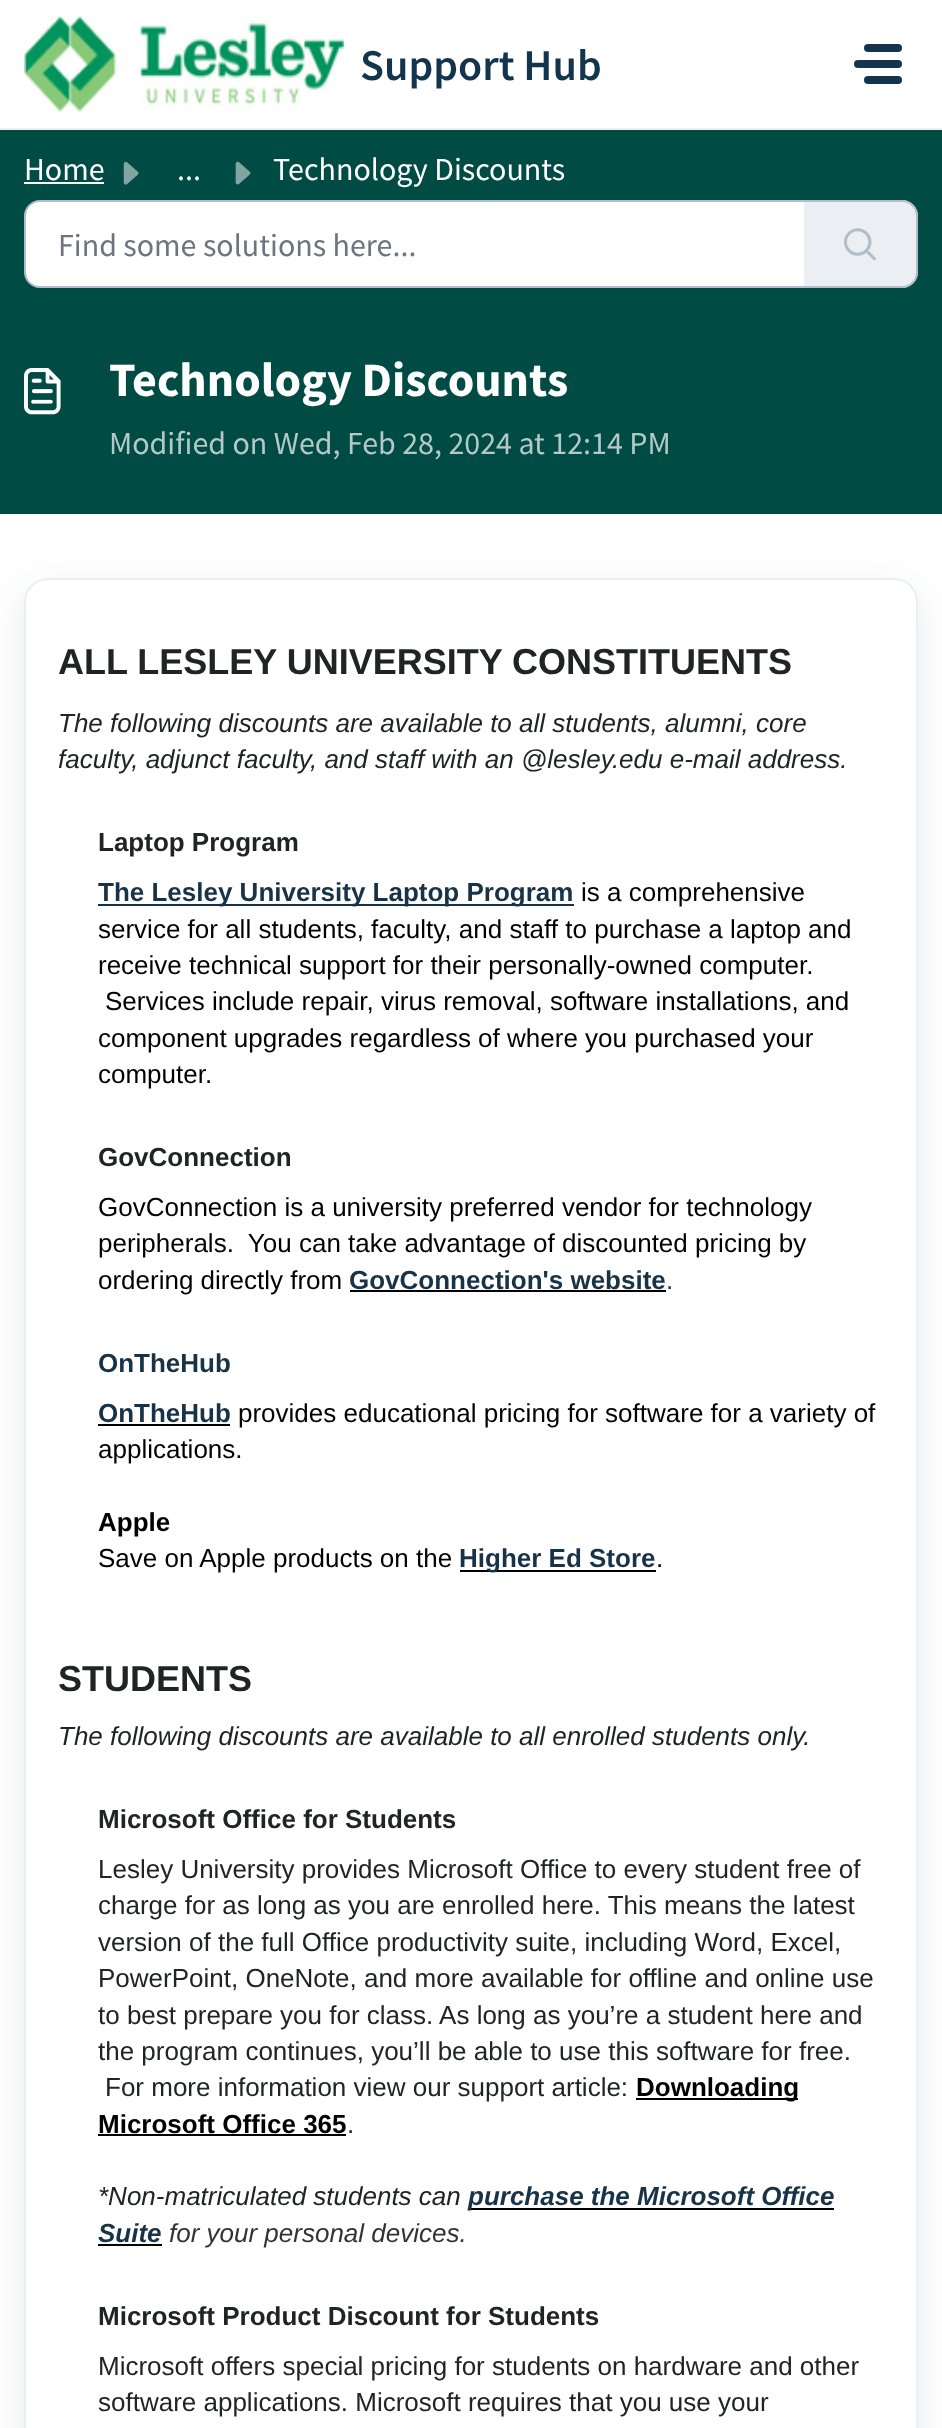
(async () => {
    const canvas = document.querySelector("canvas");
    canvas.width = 942;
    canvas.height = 2428;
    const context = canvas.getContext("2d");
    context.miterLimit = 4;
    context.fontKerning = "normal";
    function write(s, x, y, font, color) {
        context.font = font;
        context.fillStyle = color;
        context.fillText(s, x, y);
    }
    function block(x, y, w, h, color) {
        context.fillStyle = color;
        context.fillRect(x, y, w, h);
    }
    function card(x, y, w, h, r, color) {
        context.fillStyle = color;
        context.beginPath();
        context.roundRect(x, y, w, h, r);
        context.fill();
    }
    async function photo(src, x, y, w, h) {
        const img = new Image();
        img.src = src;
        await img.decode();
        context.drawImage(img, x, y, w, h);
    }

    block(0, 0, 942, 2428, "rgb(255, 255, 255)");
    block(0, 128, 942, 2, "rgb(235, 239, 243)");
    await photo("media/1.png", 24, 16, 320, 96);
    write("Support Hub", 360, 80, "600 44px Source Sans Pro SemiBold", "rgb(18, 52, 77)");
    card(864, 44, 38, 8, 4, "rgb(18, 52, 77)");
    card(854, 60, 48, 8, 4, "rgb(18, 52, 77)");
    card(864, 76, 38, 8, 4, "rgb(18, 52, 77)");
    block(0, 130, 942, 384, "rgb(0, 75, 68)");
    write("Home", 24, 180, "32px Source Sans Pro", "rgb(255, 255, 255)");
    block(24, 182, 80, 2, "rgb(255, 255, 255)");
    await photo("media/2.png", 123, 161, 16, 24);
    write("...", 177, 180, "32px Source Sans Pro", "rgb(255, 255, 255)");
    await photo("media/3.png", 235, 161, 16, 24);
    write("Technology Discounts", 273, 180, "32px Source Sans Pro", "rgb(255, 255, 255)");
    context.beginPath();
    context.roundRect(25, 201, 780, 86, [15, 0, 0, 15]);
    context.fill();
    context.strokeStyle = "rgb(177, 189, 200)";
    context.lineWidth = 2;
    context.stroke();
    write("Find some solutions here...", 58, 256, "32px Source Sans Pro", "rgb(108, 117, 125)");
    context.fillStyle = "rgb(235, 239, 243)";
    context.beginPath();
    context.roundRect(804, 200, 114, 88, [0, 16, 16, 0]);
    context.fill();
    context.fillStyle = "rgb(177, 189, 200)";
    context.beginPath();
    context.moveTo(804, 200);
    context.lineTo(902, 200);
    context.bezierCurveTo(911, 200, 918, 207, 918, 216);
    context.lineTo(918, 272);
    context.bezierCurveTo(918, 281, 911, 288, 902, 288);
    context.lineTo(804, 288);
    context.closePath();
    context.moveTo(804, 202);
    context.lineTo(902, 202);
    context.bezierCurveTo(910, 202, 916, 208, 916, 216);
    context.lineTo(916, 272);
    context.bezierCurveTo(916, 280, 910, 286, 902, 286);
    context.lineTo(804, 286);
    context.closePath();
    context.fill("evenodd");
    await photo("media/4.png", 844, 228, 32, 33);
    await photo("media/5.png", 24, 368, 37, 47);
    write("Technology Discounts", 109, 396, "bold 48px Source Sans Pro", "rgb(255, 255, 255)");
    write("Modified on Wed, Feb 28, 2024 at 12:14 PM", 109, 454, "32px Source Sans Pro", "rgb(179, 201, 199)");
    context.save();
    context.beginPath();
    context.moveTo(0, 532);
    context.lineTo(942, 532);
    context.lineTo(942, 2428);
    context.lineTo(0, 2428);
    context.closePath();
    context.moveTo(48, 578);
    context.lineTo(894, 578);
    context.bezierCurveTo(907.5, 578, 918, 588.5, 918, 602);
    context.lineTo(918, 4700);
    context.bezierCurveTo(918, 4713.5, 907.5, 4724, 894, 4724);
    context.lineTo(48, 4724);
    context.bezierCurveTo(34.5, 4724, 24, 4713.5, 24, 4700);
    context.lineTo(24, 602);
    context.bezierCurveTo(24, 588.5, 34.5, 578, 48, 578);
    context.closePath();
    context.clip("evenodd");
    context.fillStyle = "rgba(39, 49, 58, 0.1)";
    context.filter = "blur(19px)";
    context.beginPath();
    context.roundRect(24, 590, 894, 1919, 24);
    context.fill();
    context.filter = "none";
    context.restore();
    context.beginPath();
    context.roundRect(25, 579, 892, 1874, 23);
    context.strokeStyle = "rgb(235, 239, 243)";
    context.stroke();
    write("ALL LESLEY UNIVERSITY CONSTITUENTS", 58, 674, "bold 36px Liberation Sans", "rgb(34, 35, 35)");
    write("The following discounts are available to all students, alumni, core", 58, 732, "italic 26px Liberation Sans", "rgb(34, 35, 35)");
    write("faculty, adjunct faculty, and staff with an @lesley.edu e-mail address.", 58, 768, "italic 26px Liberation Sans", "rgb(34, 35, 35)");
    write("Laptop Program", 98, 851, "bold 26px Liberation Sans", "rgb(34, 35, 35)");
    block(98, 904, 476, 2, "rgb(24, 50, 71)");
    write("The Lesley University Laptop Program", 98, 901, "bold 26px Liberation Sans", "rgb(24, 50, 71)");
    write("is a comprehensive", 581, 901, "26px Liberation Sans", "rgb(0, 0, 0)");
    write("service for all students, faculty, and staff to purchase a laptop and", 98, 938, "26px Liberation Sans", "rgb(0, 0, 0)");
    write("receive technical support for their personally-owned computer.", 98, 974, "26px Liberation Sans", "rgb(0, 0, 0)");
    write("Services include repair, virus removal, software installations, and", 105, 1010, "26px Liberation Sans", "rgb(0, 0, 0)");
    write("component upgrades regardless of where you purchased your", 98, 1047, "26px Liberation Sans", "rgb(0, 0, 0)");
    write("computer.", 98, 1083, "26px Liberation Sans", "rgb(0, 0, 0)");
    write("GovConnection", 98, 1166, "bold 26px Liberation Sans", "rgb(34, 35, 35)");
    write("GovConnection is a university preferred vendor for technology", 98, 1216, "26px Liberation Sans", "rgb(0, 0, 0)");
    write("peripherals.  You can take advantage of discounted pricing by", 98, 1252, "26px Liberation Sans", "rgb(0, 0, 0)");
    write("ordering directly from", 98, 1289, "26px Liberation Sans", "rgb(0, 0, 0)");
    write("GovConnection's website", 349, 1289, "bold 26px Liberation Sans", "rgb(24, 50, 71)");
    write(".", 666, 1289, "26px Liberation Sans", "rgb(24, 50, 71)");
    block(350, 1290, 316, 2, "rgb(0, 0, 0)");
    write("OnTheHub", 98, 1372, "bold 26px Liberation Sans", "rgb(24, 50, 71)");
    write("OnTheHub", 98, 1422, "bold 26px Liberation Sans", "rgb(24, 50, 71)");
    block(98, 1424, 132, 2, "rgb(0, 0, 0)");
    write("provides educational pricing for software for a variety of", 238, 1422, "26px Liberation Sans", "rgb(0, 0, 0)");
    write("applications.", 98, 1458, "26px Liberation Sans", "rgb(0, 0, 0)");
    write("Apple", 98, 1531, "bold 26px Liberation Sans", "rgb(0, 0, 0)");
    write("Save on Apple products on the", 98, 1567, "26px Liberation Sans", "rgb(0, 0, 0)");
    block(460, 1570, 196, 2, "rgb(0, 0, 0)");
    write("Higher Ed Store", 459, 1567, "bold 26px Liberation Sans", "rgb(24, 50, 71)");
    write(".", 656, 1567, "26px Liberation Sans", "rgb(0, 0, 0)");
    write("STUDENTS", 58, 1691, "bold 36px Liberation Sans", "rgb(34, 35, 35)");
    write("The following discounts are available to all enrolled students only.", 58, 1745, "italic 26px Liberation Sans", "rgb(34, 35, 35)");
    write("Microsoft Office for Students", 98, 1828, "bold 26px Liberation Sans", "rgb(34, 35, 35)");
    write("Lesley University provides Microsoft Office to every student free of", 98, 1878, "26px Liberation Sans", "rgb(34, 35, 35)");
    write("charge for as long as you are enrolled here. This means the latest", 98, 1914, "26px Liberation Sans", "rgb(34, 35, 35)");
    write("version of the full Office productivity suite, including Word, Excel,", 98, 1951, "26px Liberation Sans", "rgb(34, 35, 35)");
    write("PowerPoint, OneNote, and more available for offline and online use", 98, 1987, "26px Liberation Sans", "rgb(34, 35, 35)");
    write("to best prepare you for class. As long as you’re a student here and", 98, 2024, "26px Liberation Sans", "rgb(34, 35, 35)");
    write("the program continues, you’ll be able to use this software for free.", 98, 2060, "26px Liberation Sans", "rgb(34, 35, 35)");
    write("For more information view our support article:", 105, 2096, "26px Liberation Sans", "rgb(34, 35, 35)");
    block(636, 2098, 162, 2, "rgb(0, 0, 0)");
    write("Downloading", 636, 2096, "bold 26px Liberation Sans", "rgb(0, 0, 0)");
    write("Microsoft Office 365", 98, 2133, "bold 26px Liberation Sans", "rgb(0, 0, 0)");
    write(".", 347, 2133, "26px Liberation Sans", "rgb(34, 35, 35)");
    block(98, 2134, 248, 2, "rgb(0, 0, 0)");
    write("*Non-matriculated students can", 98, 2205, "italic 26px Liberation Sans", "rgb(34, 35, 35)");
    block(468, 2208, 366, 2, "rgb(0, 0, 0)");
    write("purchase the Microsoft Office", 468, 2205, "italic bold 26px Liberation Sans", "rgb(24, 50, 71)");
    write("Suite", 98, 2242, "italic bold 26px Liberation Sans", "rgb(24, 50, 71)");
    block(98, 2244, 64, 2, "rgb(0, 0, 0)");
    write("for your personal devices.", 169, 2242, "italic 26px Liberation Sans", "rgb(51, 51, 51)");
    write("Microsoft Product Discount for Students", 98, 2325, "bold 26px Liberation Sans", "rgb(34, 35, 35)");
    write("Microsoft offers special pricing for students on hardware and other", 98, 2375, "26px Liberation Sans", "rgb(34, 35, 35)");
    write("software applications. Microsoft requires that you use your", 98, 2411, "26px Liberation Sans", "rgb(34, 35, 35)");
})();
